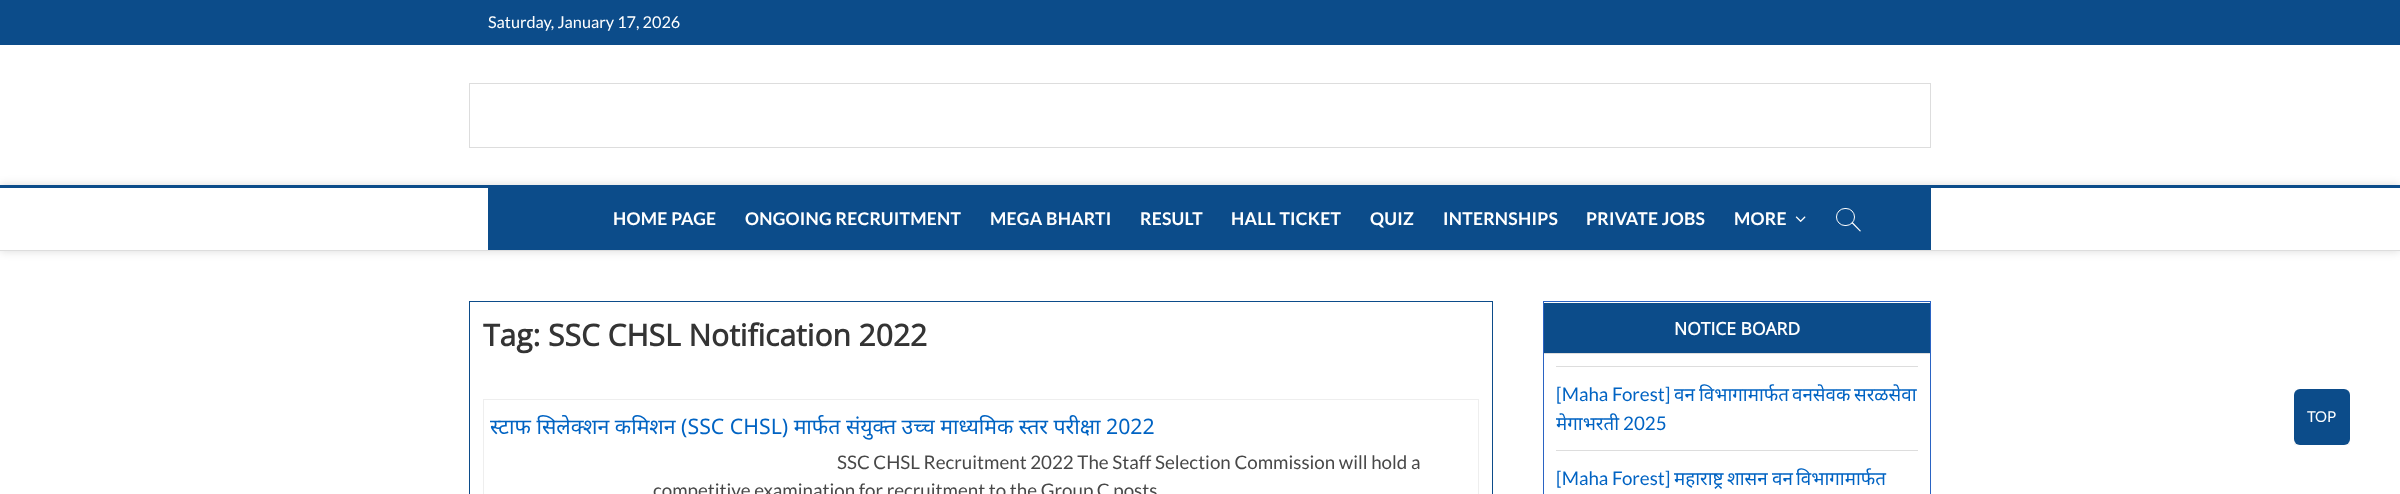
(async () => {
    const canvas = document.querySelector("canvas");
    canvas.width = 2400;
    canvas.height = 494;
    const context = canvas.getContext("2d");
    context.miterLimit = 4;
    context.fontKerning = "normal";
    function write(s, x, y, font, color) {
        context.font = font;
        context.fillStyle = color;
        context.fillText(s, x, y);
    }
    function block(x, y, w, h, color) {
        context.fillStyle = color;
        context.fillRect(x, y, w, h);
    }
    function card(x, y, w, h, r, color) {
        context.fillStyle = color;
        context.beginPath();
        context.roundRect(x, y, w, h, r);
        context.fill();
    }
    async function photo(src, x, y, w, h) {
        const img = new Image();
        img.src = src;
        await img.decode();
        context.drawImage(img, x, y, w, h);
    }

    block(0, 0, 2400, 494, "rgb(255, 255, 255)");
    block(0, 0, 2400, 45, "rgb(12, 76, 138)");
    write("Saturday, January 17, 2026", 488, 28, "16.25px Lato", "rgb(255, 255, 255)");
    context.strokeStyle = "rgb(221, 221, 221)";
    context.strokeRect(469.5, 83.5, 1461, 64);
    context.save();
    context.beginPath();
    context.moveTo(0, 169);
    context.lineTo(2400, 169);
    context.lineTo(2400, 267);
    context.lineTo(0, 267);
    context.closePath();
    context.moveTo(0, 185);
    context.lineTo(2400, 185);
    context.lineTo(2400, 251);
    context.lineTo(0, 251);
    context.closePath();
    context.clip("evenodd");
    context.fillStyle = "rgba(0, 0, 0, 0.15)";
    context.filter = "blur(5px)";
    context.beginPath();
    context.rect(0, 185, 2400, 66);
    context.fill();
    context.filter = "none";
    context.restore();
    block(0, 185, 2400, 3, "rgb(12, 76, 138)");
    block(0, 250, 2400, 1, "rgb(221, 221, 221)");
    block(488, 188, 1443, 62, "rgb(12, 76, 138)");
    context.letterSpacing = "0.25px";
    write("HOME PAGE", 613, 225, "bold 17.5px Lato", "rgb(255, 255, 255)");
    write("ONGOING RECRUITMENT", 745, 225, "bold 17.5px Lato", "rgb(255, 255, 255)");
    write("MEGA BHARTI", 990, 225, "bold 17.5px Lato", "rgb(255, 255, 255)");
    write("RESULT", 1140, 225, "bold 17.5px Lato", "rgb(255, 255, 255)");
    write("HALL TICKET", 1231, 225, "bold 17.5px Lato", "rgb(255, 255, 255)");
    write("QUIZ", 1370, 225, "bold 17.5px Lato", "rgb(255, 255, 255)");
    write("INTERNSHIPS", 1443, 225, "bold 17.5px Lato", "rgb(255, 255, 255)");
    write("PRIVATE JOBS", 1586, 225, "bold 17.5px Lato", "rgb(255, 255, 255)");
    write("MORE", 1734, 225, "bold 17.5px Lato", "rgb(255, 255, 255)");
    await photo("media/1.png", 1795, 216, 11, 6);
    context.beginPath();
    context.roundRect(1836.5, 208.5, 18, 17, 8.5);
    context.strokeStyle = "rgb(255, 255, 255)";
    context.stroke();
    context.beginPath();
    context.moveTo(1851.5, 223);
    context.lineTo(1852.5, 222);
    context.lineTo(1861, 231);
    context.lineTo(1860, 231.5);
    context.closePath();
    context.fill();
    context.strokeStyle = "rgb(12, 76, 138)";
    context.strokeRect(469.5, 301.5, 1023, 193);
    context.save();
    context.beginPath();
    context.rect(483, 315, 996, 84);
    context.clip();
    context.letterSpacing = "0px";
    write("Tag:", 483, 346, "bold 30px Open Sans", "rgb(52, 52, 52)");
    context.restore();
    context.letterSpacing = "0px";
    write("SSC CHSL Notification 2022", 548, 346, "bold 30px Open Sans", "rgb(52, 52, 52)");
    context.strokeStyle = "rgb(238, 238, 238)";
    context.strokeRect(483.5, 399.5, 995, 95);
    write("स्टाफ सिलेक्शन कमिशन (SSC CHSL) मार्फत संयुक्त उच्च माध्यमिक स्तर परीक्षा 2022", 490, 434, "21.25px Noto Sans", "rgb(0, 99, 195)");
    write("SSC CHSL Recruitment 2022 The Staff Selection Commission will hold a", 837, 469, "18.75px Lato", "rgb(72, 72, 72)");
    write("competitive examination for recruitment to the Group C posts", 653, 497, "18.75px Lato", "rgb(72, 72, 72)");
    context.strokeStyle = "rgb(42, 99, 195)";
    context.strokeRect(1543.5, 301.5, 387, 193);
    block(1544, 303, 386, 50, "rgb(12, 76, 138)");
    block(1544, 353, 386, 1, "rgb(221, 221, 221)");
    write("NOTICE BOARD", 1674, 335, "bold 17.5px Open Sans", "rgb(255, 255, 255)");
    block(1556, 366, 362, 1, "rgb(221, 221, 221)");
    write("[Maha Forest]", 1556, 401, "18.75px Lato", "rgb(0, 99, 195)");
    write("वन", 1674, 401, "18.75px Noto Sans", "rgb(0, 99, 195)");
    write("विभागामार्फत", 1699, 401, "18.75px Noto Sans", "rgb(0, 99, 195)");
    write("वनसेवक", 1792, 401, "18.75px Noto Sans", "rgb(0, 99, 195)");
    write("सरळसेवा", 1854, 401, "18.75px Noto Sans", "rgb(0, 99, 195)");
    write("मेगाभरती", 1556, 430, "18.75px Noto Sans", "rgb(0, 99, 195)");
    write("2025", 1623, 430, "18.75px Lato", "rgb(0, 99, 195)");
    block(1556, 450, 362, 1, "rgb(221, 221, 221)");
    write("[Maha Forest]", 1556, 485, "18.75px Lato", "rgb(0, 99, 195)");
    write("महाराष्ट्र", 1674, 485, "18.75px Noto Sans", "rgb(0, 99, 195)");
    write("शासन", 1727, 485, "18.75px Noto Sans", "rgb(0, 99, 195)");
    write("वन", 1772, 485, "18.75px Noto Sans", "rgb(0, 99, 195)");
    write("विभागामार्फत", 1796, 485, "18.75px Noto Sans", "rgb(0, 99, 195)");
    context.save();
    context.beginPath();
    context.rect(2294, 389, 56, 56);
    context.clip();
    context.fillStyle = "rgba(0, 0, 0, 0.08)";
    context.filter = "blur(2px)";
    context.beginPath();
    context.roundRect(2294, 391, 56, 57, 6);
    context.fill();
    context.filter = "none";
    context.restore();
    card(2294, 389, 56, 56, 6, "rgb(12, 76, 138)");
    write("TOP", 2307, 422, "15px Lato", "rgb(255, 255, 255)");
})();
